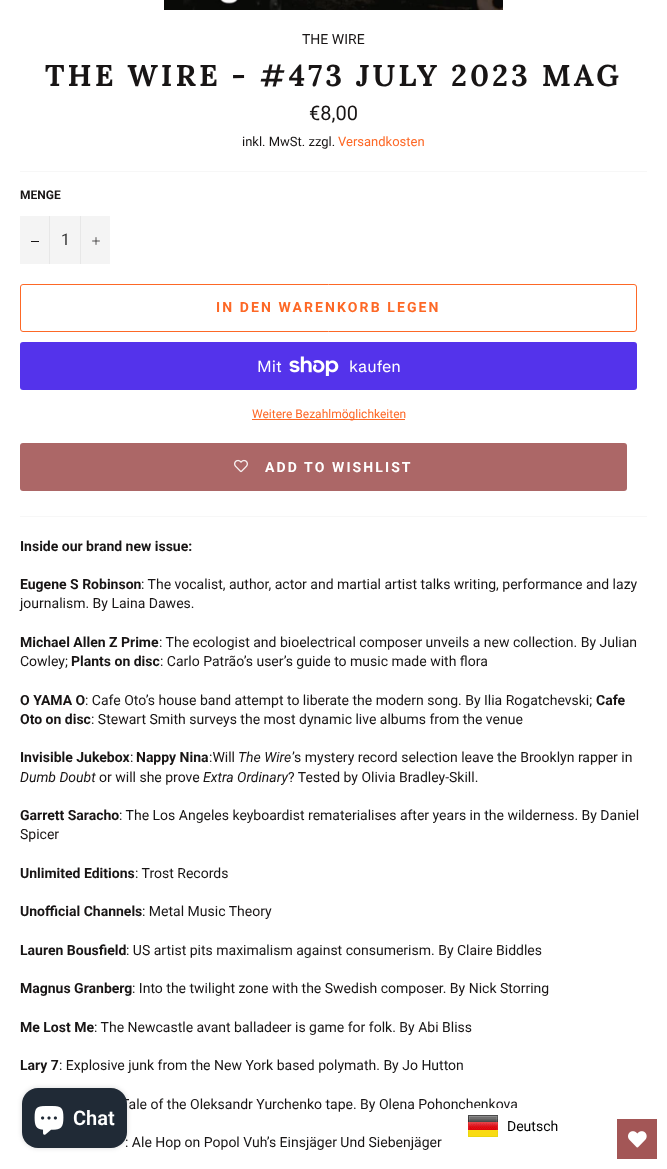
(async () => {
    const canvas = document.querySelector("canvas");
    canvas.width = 667;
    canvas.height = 1169;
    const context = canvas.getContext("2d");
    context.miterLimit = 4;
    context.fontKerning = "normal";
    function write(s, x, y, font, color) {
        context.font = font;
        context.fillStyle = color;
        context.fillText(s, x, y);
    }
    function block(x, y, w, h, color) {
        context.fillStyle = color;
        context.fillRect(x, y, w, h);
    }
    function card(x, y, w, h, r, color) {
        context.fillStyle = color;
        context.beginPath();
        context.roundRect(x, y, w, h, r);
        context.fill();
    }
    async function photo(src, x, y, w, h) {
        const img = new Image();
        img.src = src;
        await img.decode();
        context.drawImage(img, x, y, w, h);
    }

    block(0, 0, 667, 1169, "rgb(255, 255, 255)");
    await photo("media/1.png", 164, 0, 339, 10);
    write("THE WIRE", 302, 44, "14px Roboto", "rgb(24, 21, 21)");
    context.letterSpacing = "3px";
    write("THE WIRE - #473 JULY 2023 MAG", 45, 86, "bold 30px Lora", "rgb(24, 21, 21)");
    context.letterSpacing = "0px";
    write("€8,00", 309, 120, "20px Roboto", "rgb(24, 21, 21)");
    write("inkl. MwSt. zzgl.", 242, 146, "13px Roboto", "rgb(24, 21, 21)");
    write("Versandkosten", 338, 146, "13px Roboto", "rgb(253, 104, 38)");
    block(20, 171, 627, 1, "rgb(247, 247, 247)");
    write("MENGE", 20, 199, "bold 12px Roboto", "rgb(24, 21, 21)");
    block(20, 216, 90, 48, "rgb(244, 244, 244)");
    block(49, 216, 1, 48, "rgb(231, 231, 231)");
    block(31, 241, 8, 1, "rgb(24, 21, 21)");
    write("1", 61, 245, "16px Roboto", "rgb(51, 51, 51)");
    block(80, 216, 1, 48, "rgb(231, 231, 231)");
    await photo("media/2.png", 92, 237, 8, 8);
    context.beginPath();
    context.roundRect(20.5, 284.5, 616, 47, 2.5);
    context.strokeStyle = "rgb(253, 104, 38)";
    context.stroke();
    context.letterSpacing = "2.1px";
    write("IN DEN WARENKORB LEGEN", 216, 312, "bold 14px Roboto", "rgb(253, 104, 38)");
    card(20, 342, 617, 48, 3, "rgb(84, 51, 235)");
    context.letterSpacing = "0px";
    write("Mit", 257, 372, "16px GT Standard", "rgb(255, 255, 255)");
    await photo("media/3.png", 289, 356, 50, 20);
    write("kaufen", 349, 372, "16px GT Standard", "rgb(255, 255, 255)");
    block(252, 419, 153, 1, "rgb(253, 104, 38)");
    write("Weitere Bezahlmöglichkeiten", 252, 418, "12px Roboto", "rgb(253, 104, 38)");
    card(20, 443, 607, 48, 3, "rgb(172, 103, 103)");
    await photo("media/4.png", 234, 459, 14, 14);
    context.letterSpacing = "2.1px";
    write("ADD TO WISHLIST", 265, 472, "bold 14px Roboto", "rgb(255, 255, 255)");
    block(20, 516, 627, 1, "rgb(247, 247, 247)");
    context.letterSpacing = "0px";
    write("Inside our brand new issue:", 20, 551, "bold 14px Roboto", "rgb(24, 21, 21)");
    write("Eugene S Robinson", 20, 589, "bold 14px Roboto", "rgb(24, 21, 21)");
    write(": The vocalist, author, actor and martial artist talks writing, performance and lazy", 141, 589, "14px Roboto", "rgb(24, 21, 21)");
    write("journalism. By Laina Dawes.", 20, 608, "14px Roboto", "rgb(24, 21, 21)");
    write("Michael Allen Z Prime", 20, 647, "bold 14px Roboto", "rgb(24, 21, 21)");
    write(": The ecologist and bioelectrical composer unveils a new collection. By Julian", 159, 647, "14px Roboto", "rgb(24, 21, 21)");
    write("Cowley;", 20, 666, "14px Roboto", "rgb(24, 21, 21)");
    write("Plants on disc", 71, 666, "bold 14px Roboto", "rgb(24, 21, 21)");
    write(": Carlo Patrão’s user’s guide to music made with flora", 160, 666, "14px Roboto", "rgb(24, 21, 21)");
    write("O YAMA O", 20, 705, "bold 14px Roboto", "rgb(24, 21, 21)");
    write(": Cafe Oto’s house band attempt to liberate the modern song. By Ilia Rogatchevski;", 85, 705, "14px Roboto", "rgb(24, 21, 21)");
    write("Cafe", 596, 705, "bold 14px Roboto", "rgb(24, 21, 21)");
    write("Oto on disc", 20, 724, "bold 14px Roboto", "rgb(24, 21, 21)");
    write(": Stewart Smith surveys the most dynamic live albums from the venue", 91, 724, "14px Roboto", "rgb(24, 21, 21)");
    write("Invisible Jukebox", 20, 762, "bold 14px Roboto", "rgb(24, 21, 21)");
    write(":", 130, 762, "14px Roboto", "rgb(24, 21, 21)");
    write("Nappy Nina", 136, 762, "bold 14px Roboto", "rgb(24, 21, 21)");
    write(":Will", 209, 762, "14px Roboto", "rgb(24, 21, 21)");
    write("The Wire", 238, 762, "italic 14px Roboto", "rgb(24, 21, 21)");
    write("’s mystery record selection leave the Brooklyn rapper in", 292, 762, "14px Roboto", "rgb(24, 21, 21)");
    write("Dumb Doubt", 20, 782, "italic 14px Roboto", "rgb(24, 21, 21)");
    write("or will she prove", 99, 782, "14px Roboto", "rgb(24, 21, 21)");
    write("Extra Ordinary", 203, 782, "italic 14px Roboto", "rgb(24, 21, 21)");
    write("? Tested by Olivia Bradley-Skill.", 288, 782, "14px Roboto", "rgb(24, 21, 21)");
    write("Garrett Saracho", 20, 820, "bold 14px Roboto", "rgb(24, 21, 21)");
    write(": The Los Angeles keyboardist rematerialises after years in the wilderness. By Daniel", 119, 820, "14px Roboto", "rgb(24, 21, 21)");
    write("Spicer", 20, 839, "14px Roboto", "rgb(24, 21, 21)");
    write("Unlimited Editions", 20, 878, "bold 14px Roboto", "rgb(24, 21, 21)");
    write(": Trost Records", 135, 878, "14px Roboto", "rgb(24, 21, 21)");
    write("Unofficial Channels", 20, 916, "bold 14px Roboto", "rgb(24, 21, 21)");
    write(": Metal Music Theory", 142, 916, "14px Roboto", "rgb(24, 21, 21)");
    write("Lauren Bousfield", 20, 955, "bold 14px Roboto", "rgb(24, 21, 21)");
    write(": US artist pits maximalism against consumerism. By Claire Biddles", 126, 955, "14px Roboto", "rgb(24, 21, 21)");
    write("Magnus Granberg", 20, 993, "bold 14px Roboto", "rgb(24, 21, 21)");
    write(": Into the twilight zone with the Swedish composer. By Nick Storring", 132, 993, "14px Roboto", "rgb(24, 21, 21)");
    write("Me Lost Me", 20, 1032, "bold 14px Roboto", "rgb(24, 21, 21)");
    write(": The Newcastle avant balladeer is game for folk. By Abi Bliss", 94, 1032, "14px Roboto", "rgb(24, 21, 21)");
    write("Lary 7", 20, 1070, "bold 14px Roboto", "rgb(24, 21, 21)");
    write(": Explosive junk from the New York based polymath. By Jo Hutton", 59, 1070, "14px Roboto", "rgb(24, 21, 21)");
    write("Tale of the Oleksandr Yurchenko tape. By Olena Pohonchenkova", 121, 1109, "14px Roboto", "rgb(24, 21, 21)");
    write(": Ale Hop on Popol Vuh’s Einsjäger Und Siebenjäger", 125, 1147, "14px Roboto", "rgb(24, 21, 21)");
    context.fillStyle = "rgba(0, 0, 0, 0.15)";
    context.filter = "blur(2.5px)";
    context.beginPath();
    context.roundRect(22, 1088, 105, 60, 16);
    context.fill();
    context.filter = "none";
    card(22, 1088, 105, 60, 16, "rgb(32, 42, 54)");
    await photo("media/5.png", 34, 1106, 30, 29);
    write("Chat", 73, 1125, "600 20px Roboto", "rgb(255, 255, 255)");
    card(462, 1108, 180, 36, 5, "rgb(255, 255, 255)");
    await photo("media/6.png", 468, 1115, 30, 22);
    write("Deutsch", 507, 1131, "14px Roboto", "rgb(0, 0, 0)");
    block(617, 1119, 40, 40, "rgb(163, 86, 86)");
    await photo("media/7.png", 628, 1131, 19, 17);
})();
